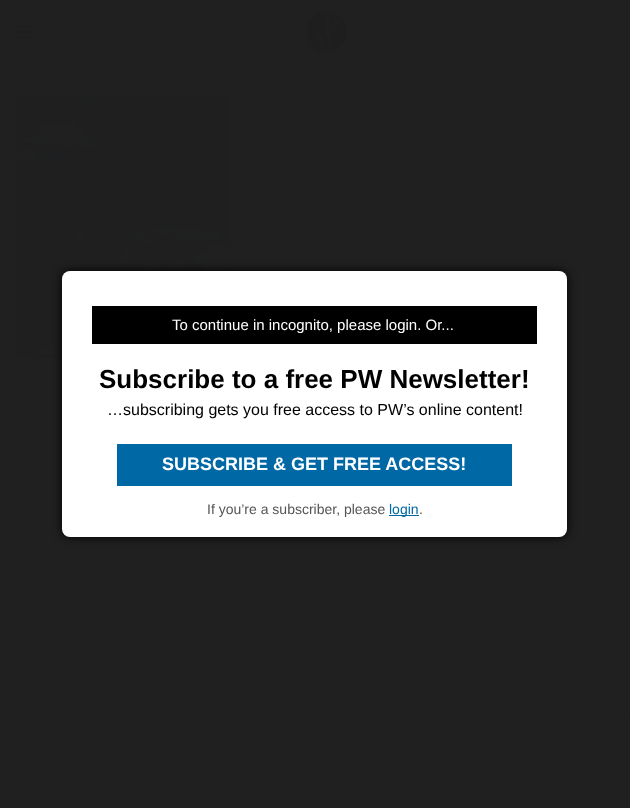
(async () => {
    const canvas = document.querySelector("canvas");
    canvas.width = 630;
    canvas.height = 808;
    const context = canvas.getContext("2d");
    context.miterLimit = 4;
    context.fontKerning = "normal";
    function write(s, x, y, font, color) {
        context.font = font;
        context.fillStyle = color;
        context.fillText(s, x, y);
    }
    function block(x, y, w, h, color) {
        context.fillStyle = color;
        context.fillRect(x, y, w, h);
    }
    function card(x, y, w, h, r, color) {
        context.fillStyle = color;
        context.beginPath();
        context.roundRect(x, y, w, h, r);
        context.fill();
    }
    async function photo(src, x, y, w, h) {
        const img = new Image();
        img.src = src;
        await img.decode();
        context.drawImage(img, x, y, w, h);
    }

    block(0, 0, 630, 808, "rgb(32, 32, 32)");
    await photo("media/1.png", 15, 26, 18, 12);
    await photo("media/2.png", 307, 12, 40, 40);
    await photo("media/3.png", 16, 96, 214, 262);
    await photo("media/4.png", 611, 717, 14, 14);
    context.fillStyle = "rgb(0, 0, 0)";
    context.filter = "blur(5px)";
    context.beginPath();
    context.roundRect(62, 271, 505, 266, 8);
    context.fill();
    context.filter = "none";
    card(62, 271, 505, 266, 8, "rgb(255, 255, 255)");
    block(92, 306, 445, 38, "rgb(0, 0, 0)");
    write("To continue in incognito, please login. Or...", 172, 330, "15px Liberation Sans", "rgb(255, 255, 255)");
    write("Subscribe to a free PW Newsletter!", 99, 388, "bold 26px Liberation Sans", "rgb(0, 0, 0)");
    write("…subscribing gets you free access to PW’s online content!", 107, 415, "16px Liberation Sans", "rgb(0, 0, 0)");
    block(117, 444, 395, 42, "rgb(0, 104, 165)");
    write("SUBSCRIBE & GET FREE ACCESS!", 162, 470, "bold 18px Liberation Sans", "rgb(255, 255, 255)");
    write("If you’re a subscriber, please", 207, 514, "14px Liberation Sans", "rgb(85, 85, 85)");
    block(389, 515, 30, 1, "rgb(0, 104, 165)");
    write("login", 389, 514, "14px Liberation Sans", "rgb(0, 104, 165)");
    write(".", 419, 514, "14px Liberation Sans", "rgb(85, 85, 85)");
})();
